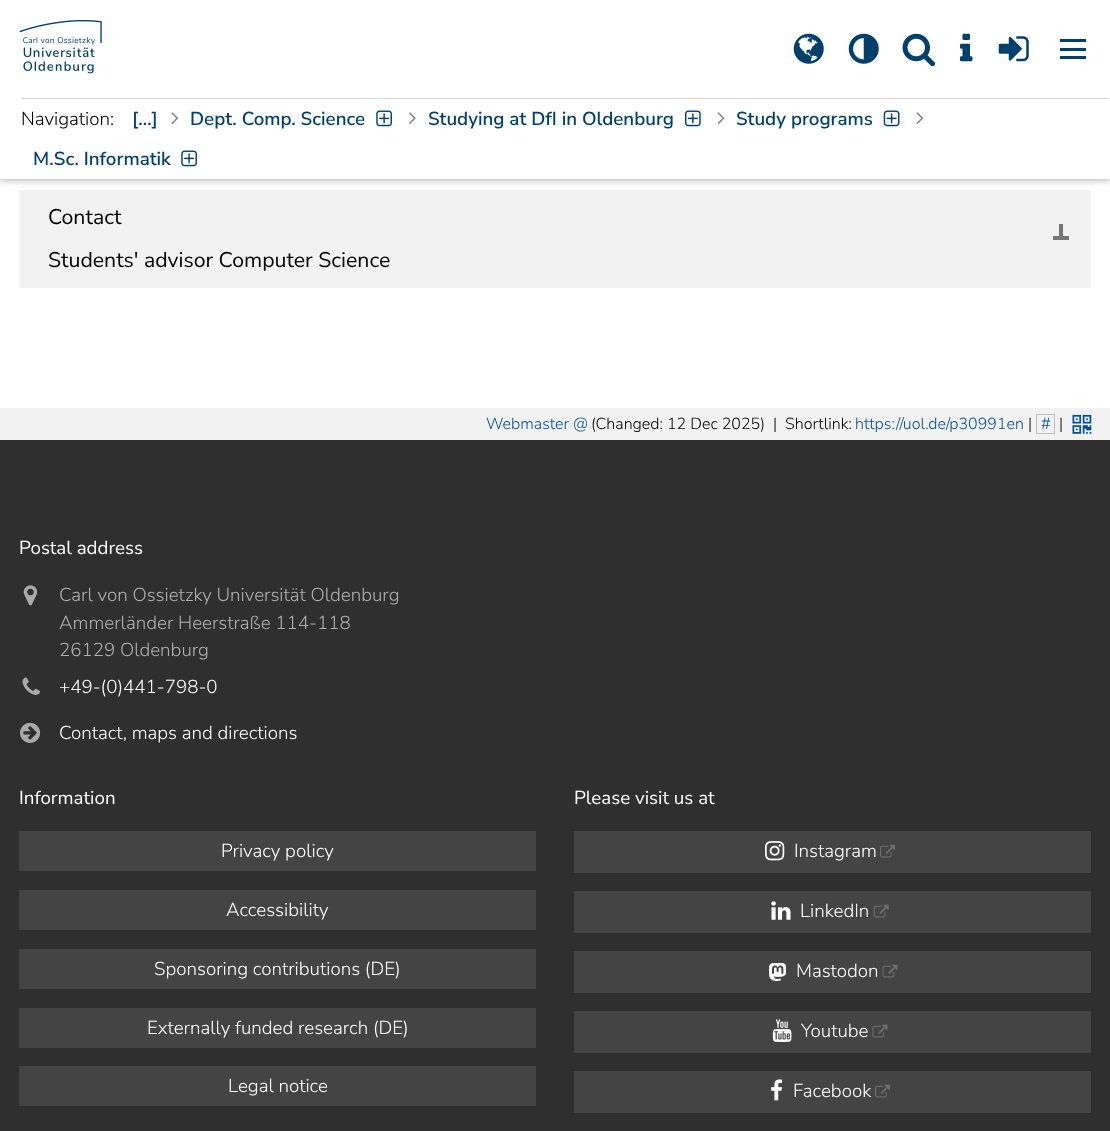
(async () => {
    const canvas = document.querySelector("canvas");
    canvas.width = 1110;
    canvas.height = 1131;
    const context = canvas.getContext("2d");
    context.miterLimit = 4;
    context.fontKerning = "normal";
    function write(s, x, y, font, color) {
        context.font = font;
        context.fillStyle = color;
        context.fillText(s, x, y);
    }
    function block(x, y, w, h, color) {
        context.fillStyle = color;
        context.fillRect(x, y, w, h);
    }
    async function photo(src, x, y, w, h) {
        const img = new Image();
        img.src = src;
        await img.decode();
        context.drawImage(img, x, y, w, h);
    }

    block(0, 0, 1110, 1131, "rgb(255, 255, 255)");
    block(19, 190, 1072, 98, "rgb(242, 242, 242)");
    context.fillStyle = "rgba(0, 0, 0, 0.4)";
    context.filter = "blur(4px)";
    context.beginPath();
    context.rect(0, 0, 1110, 179);
    context.fill();
    context.filter = "none";
    block(0, 0, 1110, 179, "rgb(255, 255, 255)");
    await photo("media/1.png", 19, 20, 83, 54);
    await photo("media/2.png", 793, 33, 31, 31);
    await photo("media/3.png", 848, 33, 31, 31);
    await photo("media/4.png", 902, 33, 33, 34);
    await photo("media/5.png", 960, 33, 13, 29);
    await photo("media/6.png", 998, 36, 31, 26);
    block(1060, 48, 26, 3, "rgb(0, 64, 107)");
    block(1060, 39, 26, 3, "rgb(0, 64, 107)");
    block(1060, 56, 26, 3, "rgb(0, 64, 107)");
    block(21, 98, 1087, 1, "rgb(216, 216, 216)");
    write("Navigation:", 21, 125, "300 18.75px Nunito Sans", "rgb(0, 0, 0)");
    write("[…]", 132, 125, "600 18.75px Nunito Sans", "rgb(0, 64, 107)");
    await photo("media/7.png", 171, 112, 8, 12);
    write("Dept. Comp. Science", 190, 125, "600 18.75px Nunito Sans", "rgb(0, 64, 107)");
    await photo("media/8.png", 376, 110, 16, 17);
    await photo("media/9.png", 409, 112, 7, 12);
    write("Studying at DfI in Oldenburg", 428, 125, "600 18.75px Nunito Sans", "rgb(0, 64, 107)");
    await photo("media/10.png", 685, 110, 16, 17);
    await photo("media/11.png", 717, 112, 8, 12);
    write("Study programs", 736, 125, "600 18.75px Nunito Sans", "rgb(0, 64, 107)");
    await photo("media/12.png", 883, 110, 17, 17);
    await photo("media/7.png", 916, 112, 8, 12);
    write("M.Sc. Informatik", 33, 165, "600 18.75px Nunito Sans", "rgb(0, 64, 107)");
    await photo("media/8.png", 181, 150, 16, 17);
    write("Contact", 48, 224, "21.25px Nunito Sans", "rgb(0, 0, 0)");
    block(1059, 224, 4, 16, "rgb(119, 119, 119)");
    block(1053, 236, 16, 4, "rgb(119, 119, 119)");
    write("Students' advisor Computer Science", 48, 267, "21.25px Nunito Sans", "rgb(0, 0, 0)");
    block(0, 408, 1110, 32, "rgb(242, 242, 242)");
    write("Webmaster @", 486, 429, "300 16px Nunito Sans", "rgb(0, 78, 159)");
    write("(Changed: 12 Dec 2025)", 591, 429, "300 16px Nunito Sans", "rgb(0, 0, 0)");
    write("|", 773, 429, "300 16px Nunito Sans", "rgb(0, 0, 0)");
    write("Shortlink:", 785, 429, "300 16px Nunito Sans", "rgb(0, 0, 0)");
    write("https://uol.de/p30991en", 855, 429, "300 16px Nunito Sans", "rgb(0, 78, 159)");
    write("|", 1028, 429, "300 16px Nunito Sans", "rgb(0, 0, 0)");
    context.strokeStyle = "rgb(189, 189, 189)";
    context.strokeRect(1036.5, 414.5, 18, 19);
    write("#", 1041, 429, "300 16px Nunito Sans", "rgb(0, 78, 159)");
    write("|", 1059, 429, "300 16px Nunito Sans", "rgb(0, 0, 0)");
    await photo("media/13.png", 1072, 414, 20, 20);
    block(0, 440, 1110, 691, "rgb(47, 47, 47)");
    write("Postal address", 19, 554, "18.75px Nunito Sans", "rgb(255, 255, 255)");
    await photo("media/14.png", 23, 585, 15, 21);
    write("Carl von Ossietzky Universität Oldenburg", 59, 601, "300 18.75px Nunito Sans", "rgb(175, 175, 175)");
    write("Ammerländer Heerstraße 114-118", 59, 629, "300 18.75px Nunito Sans", "rgb(175, 175, 175)");
    write("26129 Oldenburg", 59, 656, "300 18.75px Nunito Sans", "rgb(175, 175, 175)");
    await photo("media/15.png", 22, 677, 18, 18);
    write("+49-(0)441-798-0", 59, 693, "300 18.75px Nunito Sans", "rgb(255, 255, 255)");
    await photo("media/16.png", 20, 722, 21, 21);
    write("Contact, maps and directions", 59, 739, "300 18.75px Nunito Sans", "rgb(255, 255, 255)");
    write("Information", 19, 804, "18.75px Nunito Sans", "rgb(255, 255, 255)");
    block(19, 831, 517, 40, "rgb(68, 68, 68)");
    write("Privacy policy", 221, 857, "300 18.75px Nunito Sans", "rgb(255, 255, 255)");
    block(19, 890, 517, 40, "rgb(68, 68, 68)");
    write("Accessibility", 226, 916, "300 18.75px Nunito Sans", "rgb(255, 255, 255)");
    block(19, 949, 517, 40, "rgb(68, 68, 68)");
    write("Sponsoring contributions (DE)", 154, 975, "300 18.75px Nunito Sans", "rgb(255, 255, 255)");
    block(19, 1008, 517, 40, "rgb(68, 68, 68)");
    write("Externally funded research (DE)", 147, 1034, "300 18.75px Nunito Sans", "rgb(255, 255, 255)");
    block(19, 1066, 517, 40, "rgb(68, 68, 68)");
    write("Legal notice", 228, 1092, "300 18.75px Nunito Sans", "rgb(255, 255, 255)");
    write("Please visit us at", 574, 804, "18.75px Nunito Sans", "rgb(255, 255, 255)");
    block(574, 831, 517, 42, "rgb(68, 68, 68)");
    await photo("media/17.png", 765, 841, 20, 20);
    write("Instagram", 794, 857, "300 18.75px Nunito Sans", "rgb(255, 255, 255)");
    await photo("media/18.png", 880, 844, 15, 14);
    block(574, 891, 517, 42, "rgb(68, 68, 68)");
    await photo("media/19.png", 771, 901, 20, 19);
    write("LinkedIn", 800, 917, "300 18.75px Nunito Sans", "rgb(255, 255, 255)");
    await photo("media/20.png", 873, 904, 16, 14);
    block(574, 951, 517, 42, "rgb(68, 68, 68)");
    await photo("media/21.png", 769, 963, 17, 18);
    write("Mastodon", 796, 977, "300 18.75px Nunito Sans", "rgb(255, 255, 255)");
    await photo("media/22.png", 882, 964, 16, 14);
    block(574, 1011, 517, 42, "rgb(68, 68, 68)");
    await photo("media/23.png", 772, 1019, 20, 23);
    write("Youtube", 801, 1037, "300 18.75px Nunito Sans", "rgb(255, 255, 255)");
    await photo("media/22.png", 872, 1024, 16, 14);
    block(574, 1071, 517, 42, "rgb(68, 68, 68)");
    await photo("media/24.png", 771, 1079, 12, 22);
    write("Facebook", 793, 1097, "300 18.75px Nunito Sans", "rgb(255, 255, 255)");
    await photo("media/18.png", 875, 1084, 15, 14);
})();
